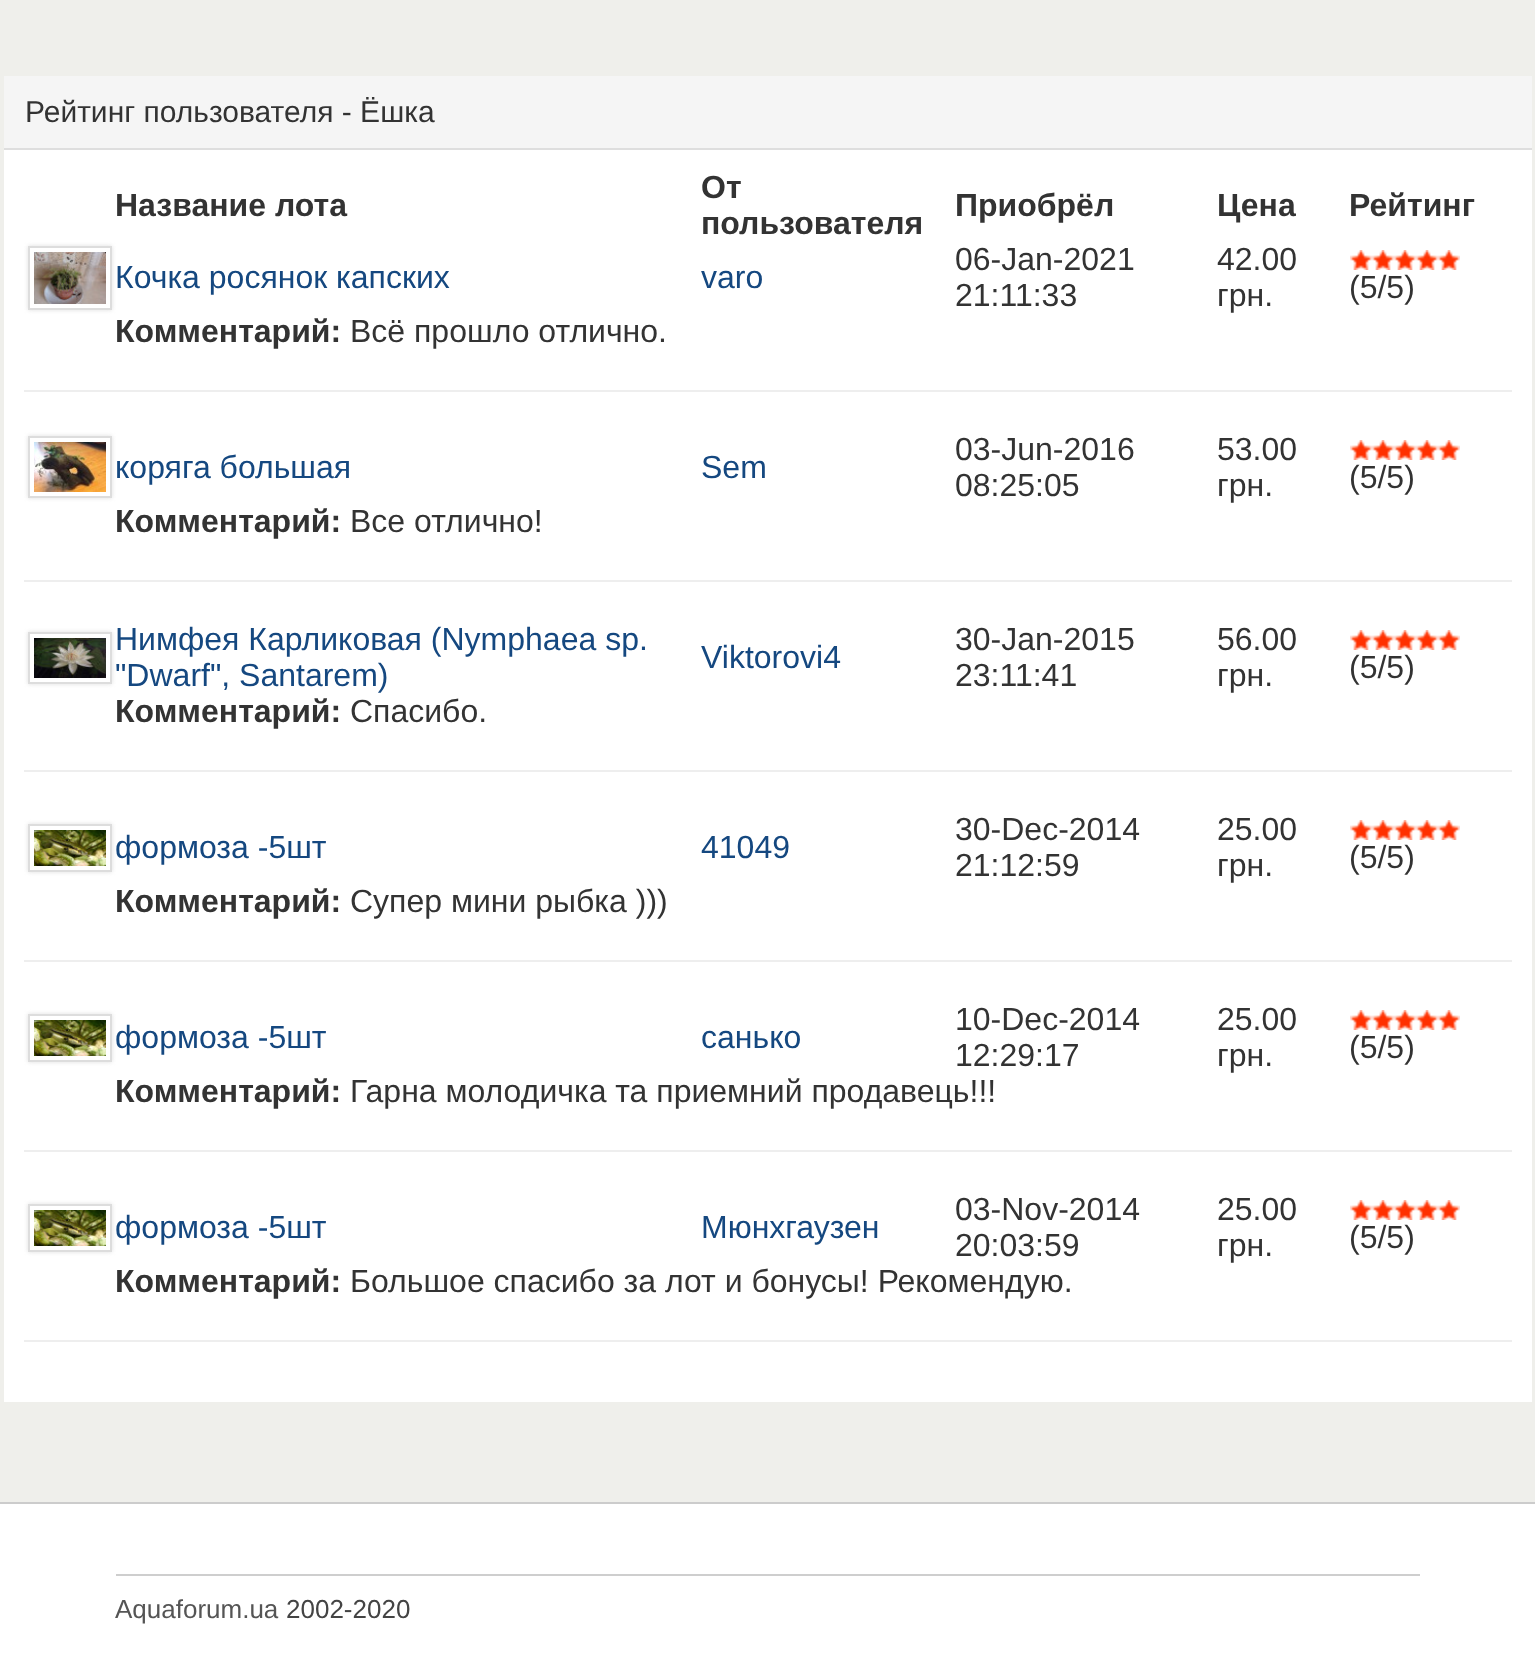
(async () => {
    const canvas = document.querySelector("canvas");
    canvas.width = 1535;
    canvas.height = 1664;
    const context = canvas.getContext("2d");
    context.miterLimit = 4;
    context.fontKerning = "normal";
    function write(s, x, y, font, color) {
        context.font = font;
        context.fillStyle = color;
        context.fillText(s, x, y);
    }
    function block(x, y, w, h, color) {
        context.fillStyle = color;
        context.fillRect(x, y, w, h);
    }
    async function photo(src, x, y, w, h) {
        const img = new Image();
        img.src = src;
        await img.decode();
        context.drawImage(img, x, y, w, h);
    }

    block(0, 0, 1535, 1664, "rgb(239, 239, 235)");
    block(4, 150, 1528, 1252, "rgb(255, 255, 255)");
    block(4, 76, 1528, 72, "rgb(245, 245, 245)");
    block(4, 148, 1528, 2, "rgb(222, 222, 222)");
    write("Рейтинг пользователя - Ёшка", 25, 122, "30px Liberation Sans", "rgb(51, 51, 51)");
    write("Название лота", 115, 216, "bold 32px Liberation Sans", "rgb(51, 51, 51)");
    write("От", 701, 198, "bold 32px Liberation Sans", "rgb(51, 51, 51)");
    write("пользователя", 701, 234, "bold 32px Liberation Sans", "rgb(51, 51, 51)");
    write("Приобрёл", 955, 216, "bold 32px Liberation Sans", "rgb(51, 51, 51)");
    write("Цена", 1217, 216, "bold 32px Liberation Sans", "rgb(51, 51, 51)");
    write("Рейтинг", 1349, 216, "bold 32px Liberation Sans", "rgb(51, 51, 51)");
    context.save();
    context.beginPath();
    context.moveTo(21, 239);
    context.lineTo(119, 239);
    context.lineTo(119, 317);
    context.lineTo(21, 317);
    context.closePath();
    context.moveTo(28, 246);
    context.lineTo(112, 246);
    context.lineTo(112, 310);
    context.lineTo(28, 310);
    context.closePath();
    context.clip("evenodd");
    context.fillStyle = "rgb(222, 222, 222)";
    context.filter = "blur(2px)";
    context.beginPath();
    context.rect(28, 246, 84, 64);
    context.fill();
    context.filter = "none";
    context.restore();
    context.strokeStyle = "rgb(221, 221, 221)";
    context.lineWidth = 2;
    context.strokeRect(29, 247, 82, 62);
    await photo("media/1.png", 34, 252, 72, 52);
    write("Кочка росянок капских", 115, 288, "32px Liberation Sans", "rgb(21, 72, 128)");
    write("varo", 701, 288, "32px Liberation Sans", "rgb(21, 72, 128)");
    write("06-Jan-2021", 955, 270, "32px Liberation Sans", "rgb(51, 51, 51)");
    write("21:11:33", 955, 306, "32px Liberation Sans", "rgb(51, 51, 51)");
    write("42.00", 1217, 270, "32px Liberation Sans", "rgb(51, 51, 51)");
    write("грн.", 1217, 306, "32px Liberation Sans", "rgb(51, 51, 51)");
    await photo("media/2.png", 1350, 250, 22, 20);
    await photo("media/2.png", 1372, 250, 22, 20);
    await photo("media/2.png", 1394, 250, 22, 20);
    await photo("media/2.png", 1416, 250, 22, 20);
    await photo("media/2.png", 1438, 250, 22, 20);
    write("(5/5)", 1349, 298, "32px Liberation Sans", "rgb(51, 51, 51)");
    write("Комментарий:", 115, 342, "bold 32px Liberation Sans", "rgb(51, 51, 51)");
    write("Всё прошло отлично.", 350, 342, "32px Liberation Sans", "rgb(51, 51, 51)");
    block(24, 390, 1488, 2, "rgb(238, 238, 238)");
    context.save();
    context.beginPath();
    context.moveTo(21, 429);
    context.lineTo(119, 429);
    context.lineTo(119, 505);
    context.lineTo(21, 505);
    context.closePath();
    context.moveTo(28, 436);
    context.lineTo(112, 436);
    context.lineTo(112, 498);
    context.lineTo(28, 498);
    context.closePath();
    context.clip("evenodd");
    context.fillStyle = "rgb(222, 222, 222)";
    context.filter = "blur(2px)";
    context.beginPath();
    context.rect(28, 436, 84, 62);
    context.fill();
    context.filter = "none";
    context.restore();
    context.strokeRect(29, 437, 82, 60);
    await photo("media/3.png", 34, 442, 72, 50);
    write("коряга большая", 115, 478, "32px Liberation Sans", "rgb(21, 72, 128)");
    write("Sem", 701, 478, "32px Liberation Sans", "rgb(21, 72, 128)");
    write("03-Jun-2016", 955, 460, "32px Liberation Sans", "rgb(51, 51, 51)");
    write("08:25:05", 955, 496, "32px Liberation Sans", "rgb(51, 51, 51)");
    write("53.00", 1217, 460, "32px Liberation Sans", "rgb(51, 51, 51)");
    write("грн.", 1217, 496, "32px Liberation Sans", "rgb(51, 51, 51)");
    await photo("media/2.png", 1350, 440, 22, 20);
    await photo("media/2.png", 1372, 440, 22, 20);
    await photo("media/2.png", 1394, 440, 22, 20);
    await photo("media/2.png", 1416, 440, 22, 20);
    await photo("media/2.png", 1438, 440, 22, 20);
    write("(5/5)", 1349, 488, "32px Liberation Sans", "rgb(51, 51, 51)");
    write("Комментарий:", 115, 532, "bold 32px Liberation Sans", "rgb(51, 51, 51)");
    write("Все отлично!", 350, 532, "32px Liberation Sans", "rgb(51, 51, 51)");
    block(24, 580, 1488, 2, "rgb(238, 238, 238)");
    context.save();
    context.beginPath();
    context.moveTo(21, 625);
    context.lineTo(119, 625);
    context.lineTo(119, 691);
    context.lineTo(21, 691);
    context.closePath();
    context.moveTo(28, 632);
    context.lineTo(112, 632);
    context.lineTo(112, 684);
    context.lineTo(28, 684);
    context.closePath();
    context.clip("evenodd");
    context.fillStyle = "rgb(222, 222, 222)";
    context.filter = "blur(2px)";
    context.beginPath();
    context.rect(28, 632, 84, 52);
    context.fill();
    context.filter = "none";
    context.restore();
    context.strokeRect(29, 633, 82, 50);
    await photo("media/4.png", 34, 638, 72, 40);
    write("Нимфея Карликовая (Nymphaea sp.", 115, 650, "32px Liberation Sans", "rgb(21, 72, 128)");
    write("\"Dwarf\", Santarem)", 115, 686, "32px Liberation Sans", "rgb(21, 72, 128)");
    write("Viktorovi4", 701, 668, "32px Liberation Sans", "rgb(21, 72, 128)");
    write("30-Jan-2015", 955, 650, "32px Liberation Sans", "rgb(51, 51, 51)");
    write("23:11:41", 955, 686, "32px Liberation Sans", "rgb(51, 51, 51)");
    write("56.00", 1217, 650, "32px Liberation Sans", "rgb(51, 51, 51)");
    write("грн.", 1217, 686, "32px Liberation Sans", "rgb(51, 51, 51)");
    await photo("media/2.png", 1350, 630, 22, 20);
    await photo("media/2.png", 1372, 630, 22, 20);
    await photo("media/2.png", 1394, 630, 22, 20);
    await photo("media/2.png", 1416, 630, 22, 20);
    await photo("media/2.png", 1438, 630, 22, 20);
    write("(5/5)", 1349, 678, "32px Liberation Sans", "rgb(51, 51, 51)");
    write("Комментарий:", 115, 722, "bold 32px Liberation Sans", "rgb(51, 51, 51)");
    write("Спасибо.", 350, 722, "32px Liberation Sans", "rgb(51, 51, 51)");
    block(24, 770, 1488, 2, "rgb(238, 238, 238)");
    context.save();
    context.beginPath();
    context.moveTo(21, 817);
    context.lineTo(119, 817);
    context.lineTo(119, 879);
    context.lineTo(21, 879);
    context.closePath();
    context.moveTo(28, 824);
    context.lineTo(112, 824);
    context.lineTo(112, 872);
    context.lineTo(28, 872);
    context.closePath();
    context.clip("evenodd");
    context.fillStyle = "rgb(222, 222, 222)";
    context.filter = "blur(2px)";
    context.beginPath();
    context.rect(28, 824, 84, 48);
    context.fill();
    context.filter = "none";
    context.restore();
    context.strokeRect(29, 825, 82, 46);
    await photo("media/5.png", 34, 830, 72, 36);
    write("формоза -5шт", 115, 858, "32px Liberation Sans", "rgb(21, 72, 128)");
    write("41049", 701, 858, "32px Liberation Sans", "rgb(21, 72, 128)");
    write("30-Dec-2014", 955, 840, "32px Liberation Sans", "rgb(51, 51, 51)");
    write("21:12:59", 955, 876, "32px Liberation Sans", "rgb(51, 51, 51)");
    write("25.00", 1217, 840, "32px Liberation Sans", "rgb(51, 51, 51)");
    write("грн.", 1217, 876, "32px Liberation Sans", "rgb(51, 51, 51)");
    await photo("media/2.png", 1350, 820, 22, 20);
    await photo("media/2.png", 1372, 820, 22, 20);
    await photo("media/2.png", 1394, 820, 22, 20);
    await photo("media/2.png", 1416, 820, 22, 20);
    await photo("media/2.png", 1438, 820, 22, 20);
    write("(5/5)", 1349, 868, "32px Liberation Sans", "rgb(51, 51, 51)");
    write("Комментарий:", 115, 912, "bold 32px Liberation Sans", "rgb(51, 51, 51)");
    write("Супер мини рыбка )))", 350, 912, "32px Liberation Sans", "rgb(51, 51, 51)");
    block(24, 960, 1488, 2, "rgb(238, 238, 238)");
    context.save();
    context.beginPath();
    context.moveTo(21, 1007);
    context.lineTo(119, 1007);
    context.lineTo(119, 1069);
    context.lineTo(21, 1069);
    context.closePath();
    context.moveTo(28, 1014);
    context.lineTo(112, 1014);
    context.lineTo(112, 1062);
    context.lineTo(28, 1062);
    context.closePath();
    context.clip("evenodd");
    context.fillStyle = "rgb(222, 222, 222)";
    context.filter = "blur(2px)";
    context.beginPath();
    context.rect(28, 1014, 84, 48);
    context.fill();
    context.filter = "none";
    context.restore();
    context.strokeRect(29, 1015, 82, 46);
    await photo("media/5.png", 34, 1020, 72, 36);
    write("формоза -5шт", 115, 1048, "32px Liberation Sans", "rgb(21, 72, 128)");
    write("санько", 701, 1048, "32px Liberation Sans", "rgb(21, 72, 128)");
    write("10-Dec-2014", 955, 1030, "32px Liberation Sans", "rgb(51, 51, 51)");
    write("12:29:17", 955, 1066, "32px Liberation Sans", "rgb(51, 51, 51)");
    write("25.00", 1217, 1030, "32px Liberation Sans", "rgb(51, 51, 51)");
    write("грн.", 1217, 1066, "32px Liberation Sans", "rgb(51, 51, 51)");
    await photo("media/2.png", 1350, 1010, 22, 20);
    await photo("media/2.png", 1372, 1010, 22, 20);
    await photo("media/2.png", 1394, 1010, 22, 20);
    await photo("media/2.png", 1416, 1010, 22, 20);
    await photo("media/2.png", 1438, 1010, 22, 20);
    write("(5/5)", 1349, 1058, "32px Liberation Sans", "rgb(51, 51, 51)");
    write("Комментарий:", 115, 1102, "bold 32px Liberation Sans", "rgb(51, 51, 51)");
    write("Гарна молодичка та приемний продавець!!!", 350, 1102, "32px Liberation Sans", "rgb(51, 51, 51)");
    block(24, 1150, 1488, 2, "rgb(238, 238, 238)");
    context.save();
    context.beginPath();
    context.moveTo(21, 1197);
    context.lineTo(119, 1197);
    context.lineTo(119, 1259);
    context.lineTo(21, 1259);
    context.closePath();
    context.moveTo(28, 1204);
    context.lineTo(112, 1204);
    context.lineTo(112, 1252);
    context.lineTo(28, 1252);
    context.closePath();
    context.clip("evenodd");
    context.fillStyle = "rgb(222, 222, 222)";
    context.filter = "blur(2px)";
    context.beginPath();
    context.rect(28, 1204, 84, 48);
    context.fill();
    context.filter = "none";
    context.restore();
    context.strokeRect(29, 1205, 82, 46);
    await photo("media/5.png", 34, 1210, 72, 36);
    write("формоза -5шт", 115, 1238, "32px Liberation Sans", "rgb(21, 72, 128)");
    write("Мюнхгаузен", 701, 1238, "32px Liberation Sans", "rgb(21, 72, 128)");
    write("03-Nov-2014", 955, 1220, "32px Liberation Sans", "rgb(51, 51, 51)");
    write("20:03:59", 955, 1256, "32px Liberation Sans", "rgb(51, 51, 51)");
    write("25.00", 1217, 1220, "32px Liberation Sans", "rgb(51, 51, 51)");
    write("грн.", 1217, 1256, "32px Liberation Sans", "rgb(51, 51, 51)");
    await photo("media/2.png", 1350, 1200, 22, 20);
    await photo("media/2.png", 1372, 1200, 22, 20);
    await photo("media/2.png", 1394, 1200, 22, 20);
    await photo("media/2.png", 1416, 1200, 22, 20);
    await photo("media/2.png", 1438, 1200, 22, 20);
    write("(5/5)", 1349, 1248, "32px Liberation Sans", "rgb(51, 51, 51)");
    write("Комментарий:", 115, 1292, "bold 32px Liberation Sans", "rgb(51, 51, 51)");
    write("Большое спасибо за лот и бонусы! Рекомендую.", 350, 1292, "32px Liberation Sans", "rgb(51, 51, 51)");
    block(24, 1340, 1488, 2, "rgb(238, 238, 238)");
    block(0, 1504, 1535, 160, "rgb(255, 255, 255)");
    block(0, 1502, 1535, 2, "rgb(204, 204, 204)");
    block(116, 1574, 1304, 2, "rgb(206, 206, 206)");
    write("Aquaforum.ua", 115, 1618, "26px Liberation Sans", "rgb(85, 85, 85)");
    write("2002-2020", 286, 1618, "26px Liberation Sans", "rgb(68, 68, 68)");
})();
